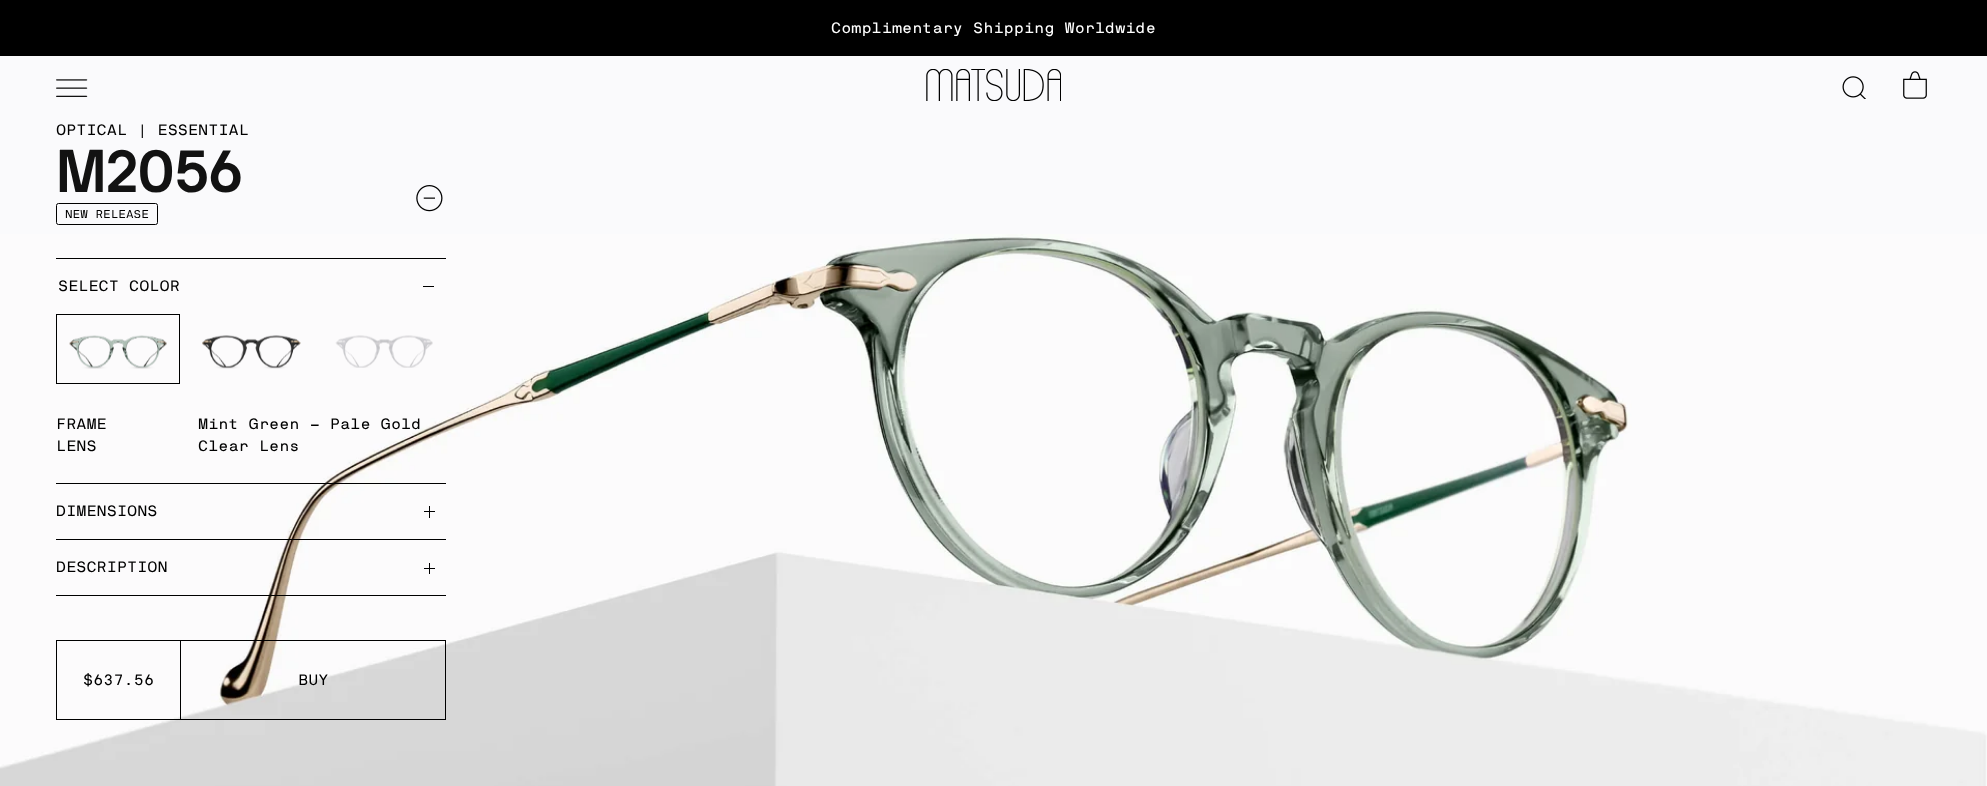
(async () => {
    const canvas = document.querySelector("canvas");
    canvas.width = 1987;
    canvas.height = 786;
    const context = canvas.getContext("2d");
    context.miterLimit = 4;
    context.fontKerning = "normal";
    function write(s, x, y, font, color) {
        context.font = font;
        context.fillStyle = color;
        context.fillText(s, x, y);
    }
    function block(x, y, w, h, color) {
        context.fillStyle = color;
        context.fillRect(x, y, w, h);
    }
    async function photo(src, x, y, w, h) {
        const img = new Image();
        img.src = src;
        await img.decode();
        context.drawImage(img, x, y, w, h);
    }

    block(0, 0, 1987, 786, "rgb(250, 250, 252)");
    block(0, 0, 1987, 56, "rgb(0, 0, 0)");
    write("Complimentary Shipping Worldwide", 831, 33, "15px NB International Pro", "rgb(255, 255, 255)");
    await photo("media/1.png", 56, 79, 32, 18);
    await photo("media/2.png", 926, 69, 135, 32);
    await photo("media/3.png", 1842, 76, 24, 23);
    await photo("media/4.png", 1903, 71, 24, 28);
    await photo("media/9.png", 0, 234, 1987, 552);
    block(56, 258, 390, 1, "rgb(0, 0, 0)");
    write("OPTICAL | ESSENTIAL", 56, 135, "15px NB International Pro", "rgb(0, 0, 0)");
    write("M2056", 56, 192, "bold 60px NB International Pro", "rgb(18, 18, 18)");
    context.beginPath();
    context.roundRect(56.5, 203.5, 101, 21, 2);
    context.strokeStyle = "rgb(0, 0, 0)";
    context.stroke();
    write("NEW RELEASE", 65, 218, "11.25px NB International Pro", "rgb(0, 0, 0)");
    block(56, 483, 390, 1, "rgb(0, 0, 0)");
    write("SELECT COLOR", 58, 291, "15px NB International Pro", "rgb(0, 0, 0)");
    block(423, 286, 11, 1, "rgb(0, 0, 0)");
    context.strokeRect(56.5, 314.5, 123, 69);
    await photo("media/5.png", 69, 335, 98, 34);
    await photo("media/6.png", 202, 335, 99, 34);
    await photo("media/7.png", 335, 335, 98, 33);
    write("FRAME", 56, 429, "15px NB International Pro", "rgb(0, 0, 0)");
    write("Mint Green - Pale Gold", 198, 429, "15px NB International Pro", "rgb(0, 0, 0)");
    write("LENS", 56, 451, "15px NB International Pro", "rgb(0, 0, 0)");
    write("Clear Lens", 198, 451, "15px NB International Pro", "rgb(0, 0, 0)");
    block(56, 539, 390, 1, "rgb(0, 0, 0)");
    write("DIMENSIONS", 56, 516, "15px NB International Pro", "rgb(0, 0, 0)");
    block(429, 506, 1, 12, "rgb(0, 0, 0)");
    block(424, 511, 11, 1, "rgb(0, 0, 0)");
    block(56, 595, 390, 1, "rgb(0, 0, 0)");
    write("DESCRIPTION", 56, 572, "15px NB International Pro", "rgb(0, 0, 0)");
    block(429, 563, 1, 11, "rgb(0, 0, 0)");
    block(424, 568, 11, 1, "rgb(0, 0, 0)");
    context.strokeRect(56.5, 640.5, 389, 79);
    block(180, 640, 1, 80, "rgb(0, 0, 0)");
    write("$637.56", 83, 685, "15px NB International Pro", "rgb(0, 0, 0)");
    write("BUY", 298, 685, "15px NB International Pro", "rgb(0, 0, 0)");
    await photo("media/8.png", 416, 185, 27, 27);
})();
